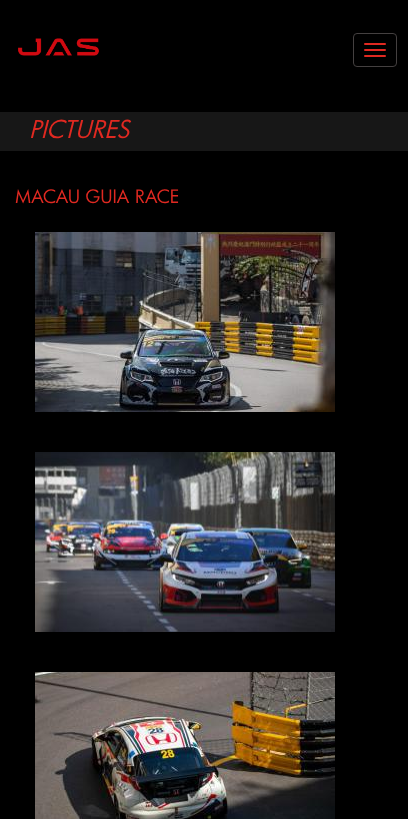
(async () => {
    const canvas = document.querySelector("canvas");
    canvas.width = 408;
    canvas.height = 819;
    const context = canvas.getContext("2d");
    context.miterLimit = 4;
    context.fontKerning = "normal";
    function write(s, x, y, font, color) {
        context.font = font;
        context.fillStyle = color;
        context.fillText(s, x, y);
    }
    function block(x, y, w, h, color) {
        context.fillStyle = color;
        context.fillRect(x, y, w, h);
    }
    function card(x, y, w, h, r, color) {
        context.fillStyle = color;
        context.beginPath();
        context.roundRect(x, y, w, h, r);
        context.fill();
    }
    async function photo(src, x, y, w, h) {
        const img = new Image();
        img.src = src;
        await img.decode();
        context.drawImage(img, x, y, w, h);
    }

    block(0, 0, 408, 819, "rgb(0, 0, 0)");
    await photo("media/1.png", 18, 38, 81, 18);
    context.beginPath();
    context.roundRect(353.5, 33.5, 43, 33, 3.5);
    context.strokeStyle = "rgb(68, 64, 64)";
    context.stroke();
    card(364, 43, 22, 2, 1, "rgb(224, 41, 33)");
    card(364, 49, 22, 2, 1, "rgb(224, 41, 33)");
    card(364, 55, 22, 2, 1, "rgb(224, 41, 33)");
    block(0, 112, 408, 39, "rgb(23, 23, 23)");
    write("PICTURES", 29, 138, "italic 24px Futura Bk", "rgb(224, 41, 33)");
    write("MACAU GUIA RACE", 15, 203, "18px Futura Bk", "rgb(224, 41, 33)");
    await photo("media/2.png", 35, 232, 300, 180);
    await photo("media/3.png", 35, 452, 300, 180);
    await photo("media/4.png", 35, 672, 300, 147);
})();
